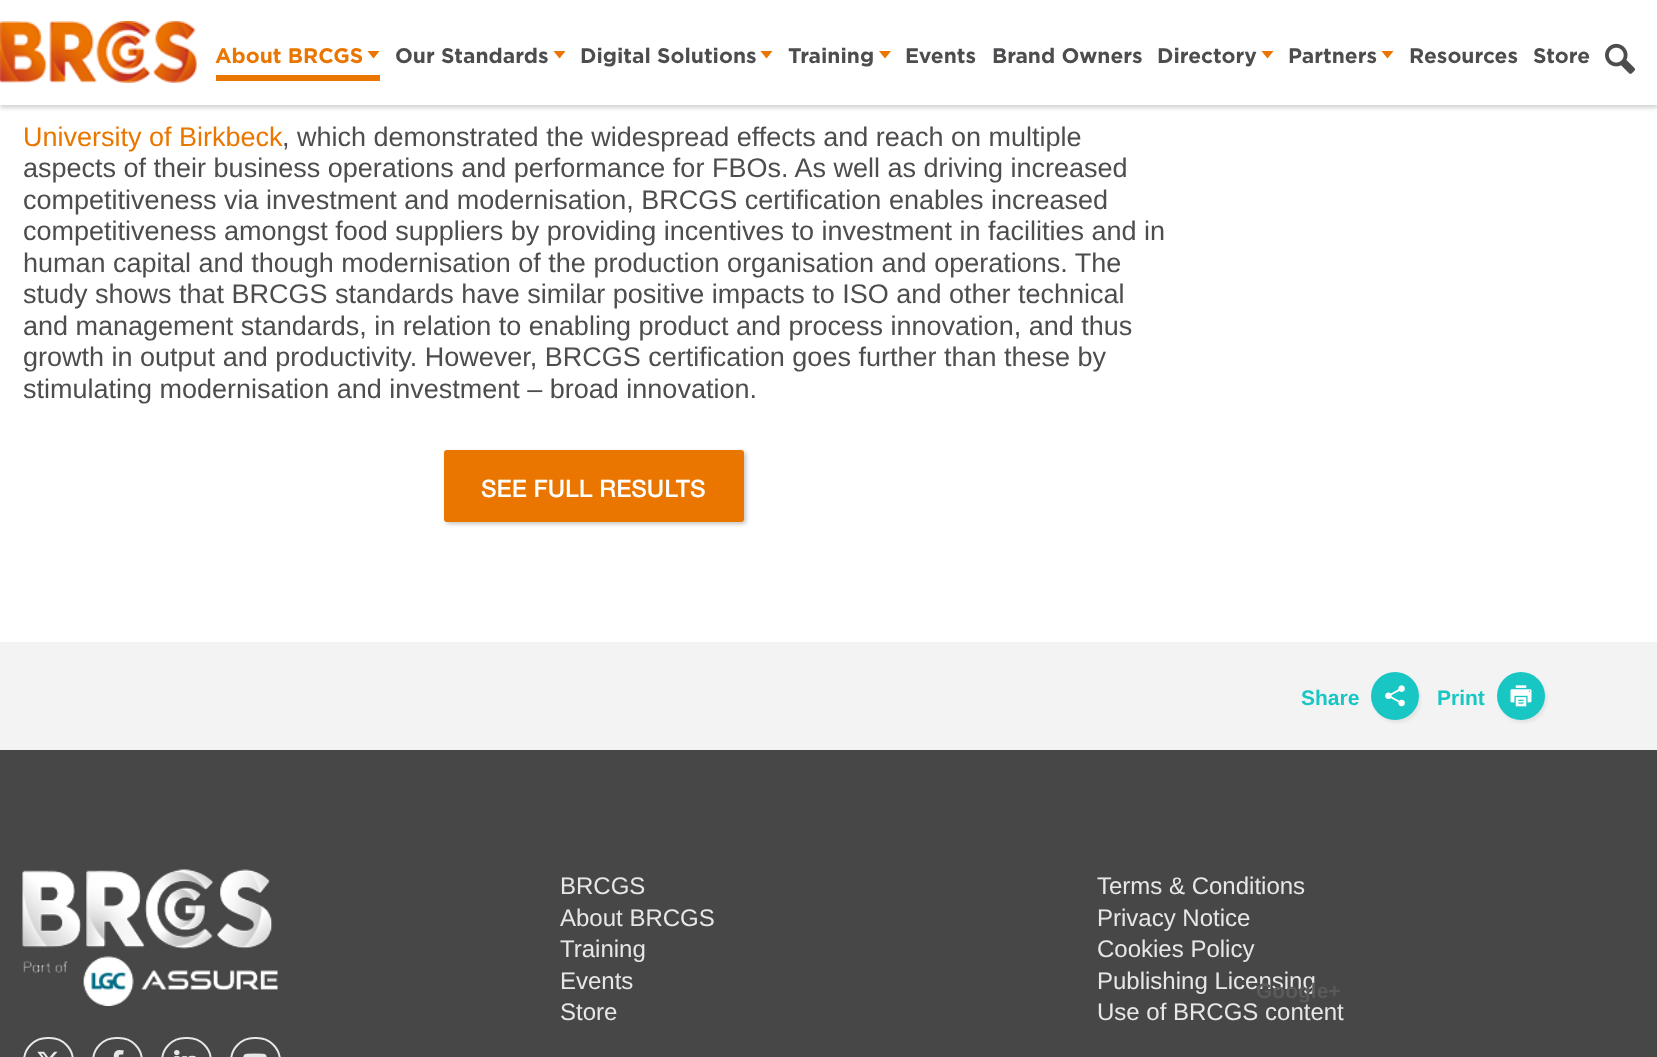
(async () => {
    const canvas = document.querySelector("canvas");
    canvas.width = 1657;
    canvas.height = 1057;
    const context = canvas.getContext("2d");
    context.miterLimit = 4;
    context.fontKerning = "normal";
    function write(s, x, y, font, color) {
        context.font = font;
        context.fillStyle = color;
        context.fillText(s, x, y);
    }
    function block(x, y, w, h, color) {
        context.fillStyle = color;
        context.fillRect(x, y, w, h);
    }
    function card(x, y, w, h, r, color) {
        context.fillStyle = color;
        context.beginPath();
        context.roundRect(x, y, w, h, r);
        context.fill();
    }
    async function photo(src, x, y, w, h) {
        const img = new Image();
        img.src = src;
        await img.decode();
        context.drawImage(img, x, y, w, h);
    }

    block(0, 0, 1657, 1057, "rgb(255, 255, 255)");
    context.fillStyle = "rgba(0, 0, 0, 0.17)";
    context.filter = "blur(2px)";
    context.beginPath();
    context.rect(0, 3, 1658, 105);
    context.fill();
    context.filter = "none";
    block(0, 0, 1657, 105, "rgb(255, 255, 255)");
    await photo("media/1.png", 0, 21, 197, 62);
    block(216, 75, 164, 6, "rgb(234, 118, 0)");
    write("About BRCGS", 215, 63, "bold 21px Gotham", "rgb(234, 118, 0)");
    context.fillStyle = "rgb(234, 117, 0)";
    context.beginPath();
    context.moveTo(367.5, 51);
    context.lineTo(379.5, 51);
    context.lineTo(373.5, 58.5);
    context.closePath();
    context.fill();
    write("Our Standards", 395, 63, "bold 21px Gotham", "rgb(77, 77, 79)");
    context.fillStyle = "rgb(234, 117, 0)";
    context.beginPath();
    context.moveTo(553.5, 51);
    context.lineTo(565.5, 51);
    context.lineTo(559.5, 58.5);
    context.closePath();
    context.fill();
    write("Digital Solutions", 580, 63, "bold 21px Gotham", "rgb(77, 77, 79)");
    context.fillStyle = "rgb(234, 117, 0)";
    context.beginPath();
    context.moveTo(760.5, 51);
    context.lineTo(772.5, 51);
    context.lineTo(766.5, 58.5);
    context.closePath();
    context.fill();
    write("Training", 788, 63, "bold 21px Gotham", "rgb(77, 77, 79)");
    context.fillStyle = "rgb(234, 117, 0)";
    context.beginPath();
    context.moveTo(879, 51);
    context.lineTo(891, 51);
    context.lineTo(885, 58.5);
    context.closePath();
    context.fill();
    write("Events", 905, 63, "bold 21px Gotham", "rgb(77, 77, 79)");
    write("Brand Owners", 992, 63, "bold 21px Gotham", "rgb(77, 77, 79)");
    write("Directory", 1157, 63, "bold 21px Gotham", "rgb(77, 77, 79)");
    context.fillStyle = "rgb(234, 117, 0)";
    context.beginPath();
    context.moveTo(1261.5, 51);
    context.lineTo(1273.5, 51);
    context.lineTo(1267.5, 58.5);
    context.closePath();
    context.fill();
    write("Partners", 1288, 63, "bold 21px Gotham", "rgb(77, 77, 79)");
    context.fillStyle = "rgb(234, 117, 0)";
    context.beginPath();
    context.moveTo(1381.5, 51);
    context.lineTo(1393.5, 51);
    context.lineTo(1387.5, 58.5);
    context.closePath();
    context.fill();
    write("Resources", 1409, 63, "bold 21px Gotham", "rgb(77, 77, 79)");
    write("Store", 1533, 63, "bold 21px Gotham", "rgb(77, 77, 79)");
    await photo("media/2.png", 1605, 43, 30, 31);
    write("University of Birkbeck", 23, 146, "27px Liberation Sans", "rgb(234, 118, 0)");
    write(", which demonstrated the widespread effects and reach on multiple", 282, 146, "27px Liberation Sans", "rgb(77, 77, 79)");
    write("aspects of their business operations and performance for FBOs. As well as driving increased", 23, 177, "27px Liberation Sans", "rgb(77, 77, 79)");
    write("competitiveness via investment and modernisation, BRCGS certification enables increased", 23, 209, "27px Liberation Sans", "rgb(77, 77, 79)");
    write("competitiveness amongst food suppliers by providing incentives to investment in facilities and in", 23, 240, "27px Liberation Sans", "rgb(77, 77, 79)");
    write("human capital and though modernisation of the production organisation and operations. The", 23, 272, "27px Liberation Sans", "rgb(77, 77, 79)");
    write("study shows that BRCGS standards have similar positive impacts to ISO and other technical", 23, 303, "27px Liberation Sans", "rgb(77, 77, 79)");
    write("and management standards, in relation to enabling product and process innovation, and thus", 23, 335, "27px Liberation Sans", "rgb(77, 77, 79)");
    write("growth in output and productivity. However, BRCGS certification goes further than these by", 23, 366, "27px Liberation Sans", "rgb(77, 77, 79)");
    write("stimulating modernisation and investment – broad innovation.", 23, 398, "27px Liberation Sans", "rgb(77, 77, 79)");
    context.fillStyle = "rgba(0, 0, 0, 0.23)";
    context.filter = "blur(2px)";
    context.beginPath();
    context.roundRect(446, 452, 300, 72, 3);
    context.fill();
    context.filter = "none";
    card(444, 450, 300, 72, 3, "rgb(234, 118, 0)");
    write("SEE FULL RESULTS", 481, 497, "500 24px Helvetica Neue", "rgb(255, 255, 255)");
    block(0, 750, 1657, 307, "rgb(71, 71, 71)");
    await photo("media/3.png", 22, 869, 256, 137);
    context.beginPath();
    context.roundRect(24, 1038, 49, 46, 24.5);
    context.strokeStyle = "rgb(230, 231, 232)";
    context.lineWidth = 2;
    context.stroke();
    await photo("media/4.png", 37, 1051, 21, 6);
    context.beginPath();
    context.roundRect(93, 1038, 49, 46, 24.5);
    context.stroke();
    await photo("media/5.png", 113, 1050, 11, 7);
    context.beginPath();
    context.roundRect(162, 1038, 49, 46, 24.5);
    context.stroke();
    await photo("media/6.png", 174, 1050, 22, 7);
    context.beginPath();
    context.roundRect(231, 1038, 49, 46, 24.5);
    context.stroke();
    await photo("media/7.png", 243, 1053, 24, 4);
    write("BRCGS", 560, 894, "24px Liberation Sans", "rgb(230, 231, 232)");
    write("About BRCGS", 560, 926, "24px Liberation Sans", "rgb(230, 231, 232)");
    write("Training", 560, 957, "24px Liberation Sans", "rgb(230, 231, 232)");
    write("Events", 560, 989, "24px Liberation Sans", "rgb(230, 231, 232)");
    write("Store", 560, 1020, "24px Liberation Sans", "rgb(230, 231, 232)");
    write("Terms & Conditions", 1097, 894, "24px Liberation Sans", "rgb(230, 231, 232)");
    write("Privacy Notice", 1097, 926, "24px Liberation Sans", "rgb(230, 231, 232)");
    write("Cookies Policy", 1097, 957, "24px Liberation Sans", "rgb(230, 231, 232)");
    write("Publishing Licensing", 1097, 989, "24px Liberation Sans", "rgb(230, 231, 232)");
    write("Use of BRCGS content", 1097, 1020, "24px Liberation Sans", "rgb(230, 231, 232)");
    block(0, 642, 1657, 108, "rgb(243, 243, 243)");
    write("Share", 1301, 705, "bold 21px Liberation Sans", "rgb(24, 198, 195)");
    context.fillStyle = "rgba(0, 0, 0, 0.06)";
    context.filter = "blur(1.5px)";
    context.beginPath();
    context.roundRect(1373, 675, 48, 48, 24);
    context.fill();
    context.filter = "none";
    context.fillStyle = "rgb(24, 198, 195)";
    context.beginPath();
    context.arc(1395, 696, 24, 0, Math.PI * 2);
    context.fill();
    await photo("media/8.png", 1385, 685, 20, 22);
    write("Google+", 1256, 998, "bold 21px Liberation Sans", "rgb(90, 90, 90)");
    write("Print", 1437, 705, "bold 21px Liberation Sans", "rgb(24, 198, 195)");
    context.fillStyle = "rgba(0, 0, 0, 0.06)";
    context.filter = "blur(1.5px)";
    context.beginPath();
    context.roundRect(1499, 675, 48, 48, 24);
    context.fill();
    context.filter = "none";
    context.fillStyle = "rgb(24, 198, 195)";
    context.beginPath();
    context.arc(1521, 696, 24, 0, Math.PI * 2);
    context.fill();
    await photo("media/9.png", 1510, 685, 22, 22);
})();
